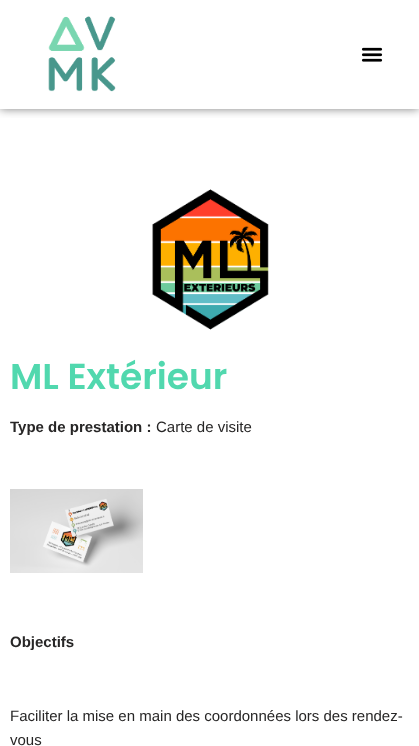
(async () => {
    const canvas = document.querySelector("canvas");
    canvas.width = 419;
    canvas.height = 746;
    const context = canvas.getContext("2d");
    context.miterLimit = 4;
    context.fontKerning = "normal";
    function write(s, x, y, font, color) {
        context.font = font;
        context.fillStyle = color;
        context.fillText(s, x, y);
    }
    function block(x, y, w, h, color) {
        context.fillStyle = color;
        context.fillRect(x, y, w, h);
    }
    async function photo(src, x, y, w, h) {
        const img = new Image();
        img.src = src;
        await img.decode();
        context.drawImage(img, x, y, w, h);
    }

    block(0, 0, 419, 746, "rgb(255, 255, 255)");
    context.save();
    context.beginPath();
    context.rect(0, 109, 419, 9);
    context.clip();
    context.fillStyle = "rgba(0, 0, 0, 0.5)";
    context.filter = "blur(5px)";
    context.beginPath();
    context.rect(0, 0, 419, 109);
    context.fill();
    context.filter = "none";
    context.restore();
    await photo("media/1.png", 48, 16, 68, 76);
    await photo("media/2.png", 361, 47, 22, 15);
    await photo("media/3.png", 152, 189, 117, 141);
    write("ML Extérieur", 10, 389, "600 36px Poppins", "rgb(81, 216, 174)");
    write("Type de prestation :", 10, 432, "bold 15px Liberation Sans", "rgb(39, 38, 38)");
    write("Carte de visite", 156, 432, "15px Liberation Sans", "rgb(39, 38, 38)");
    await photo("media/4.png", 10, 489, 133, 84);
    write("Objectifs", 10, 647, "bold 15px Liberation Sans", "rgb(39, 38, 38)");
    write("Faciliter la mise en main des coordonnées lors des rendez-", 10, 721, "15px Liberation Sans", "rgb(39, 38, 38)");
    write("vous", 10, 745, "15px Liberation Sans", "rgb(39, 38, 38)");
})();
